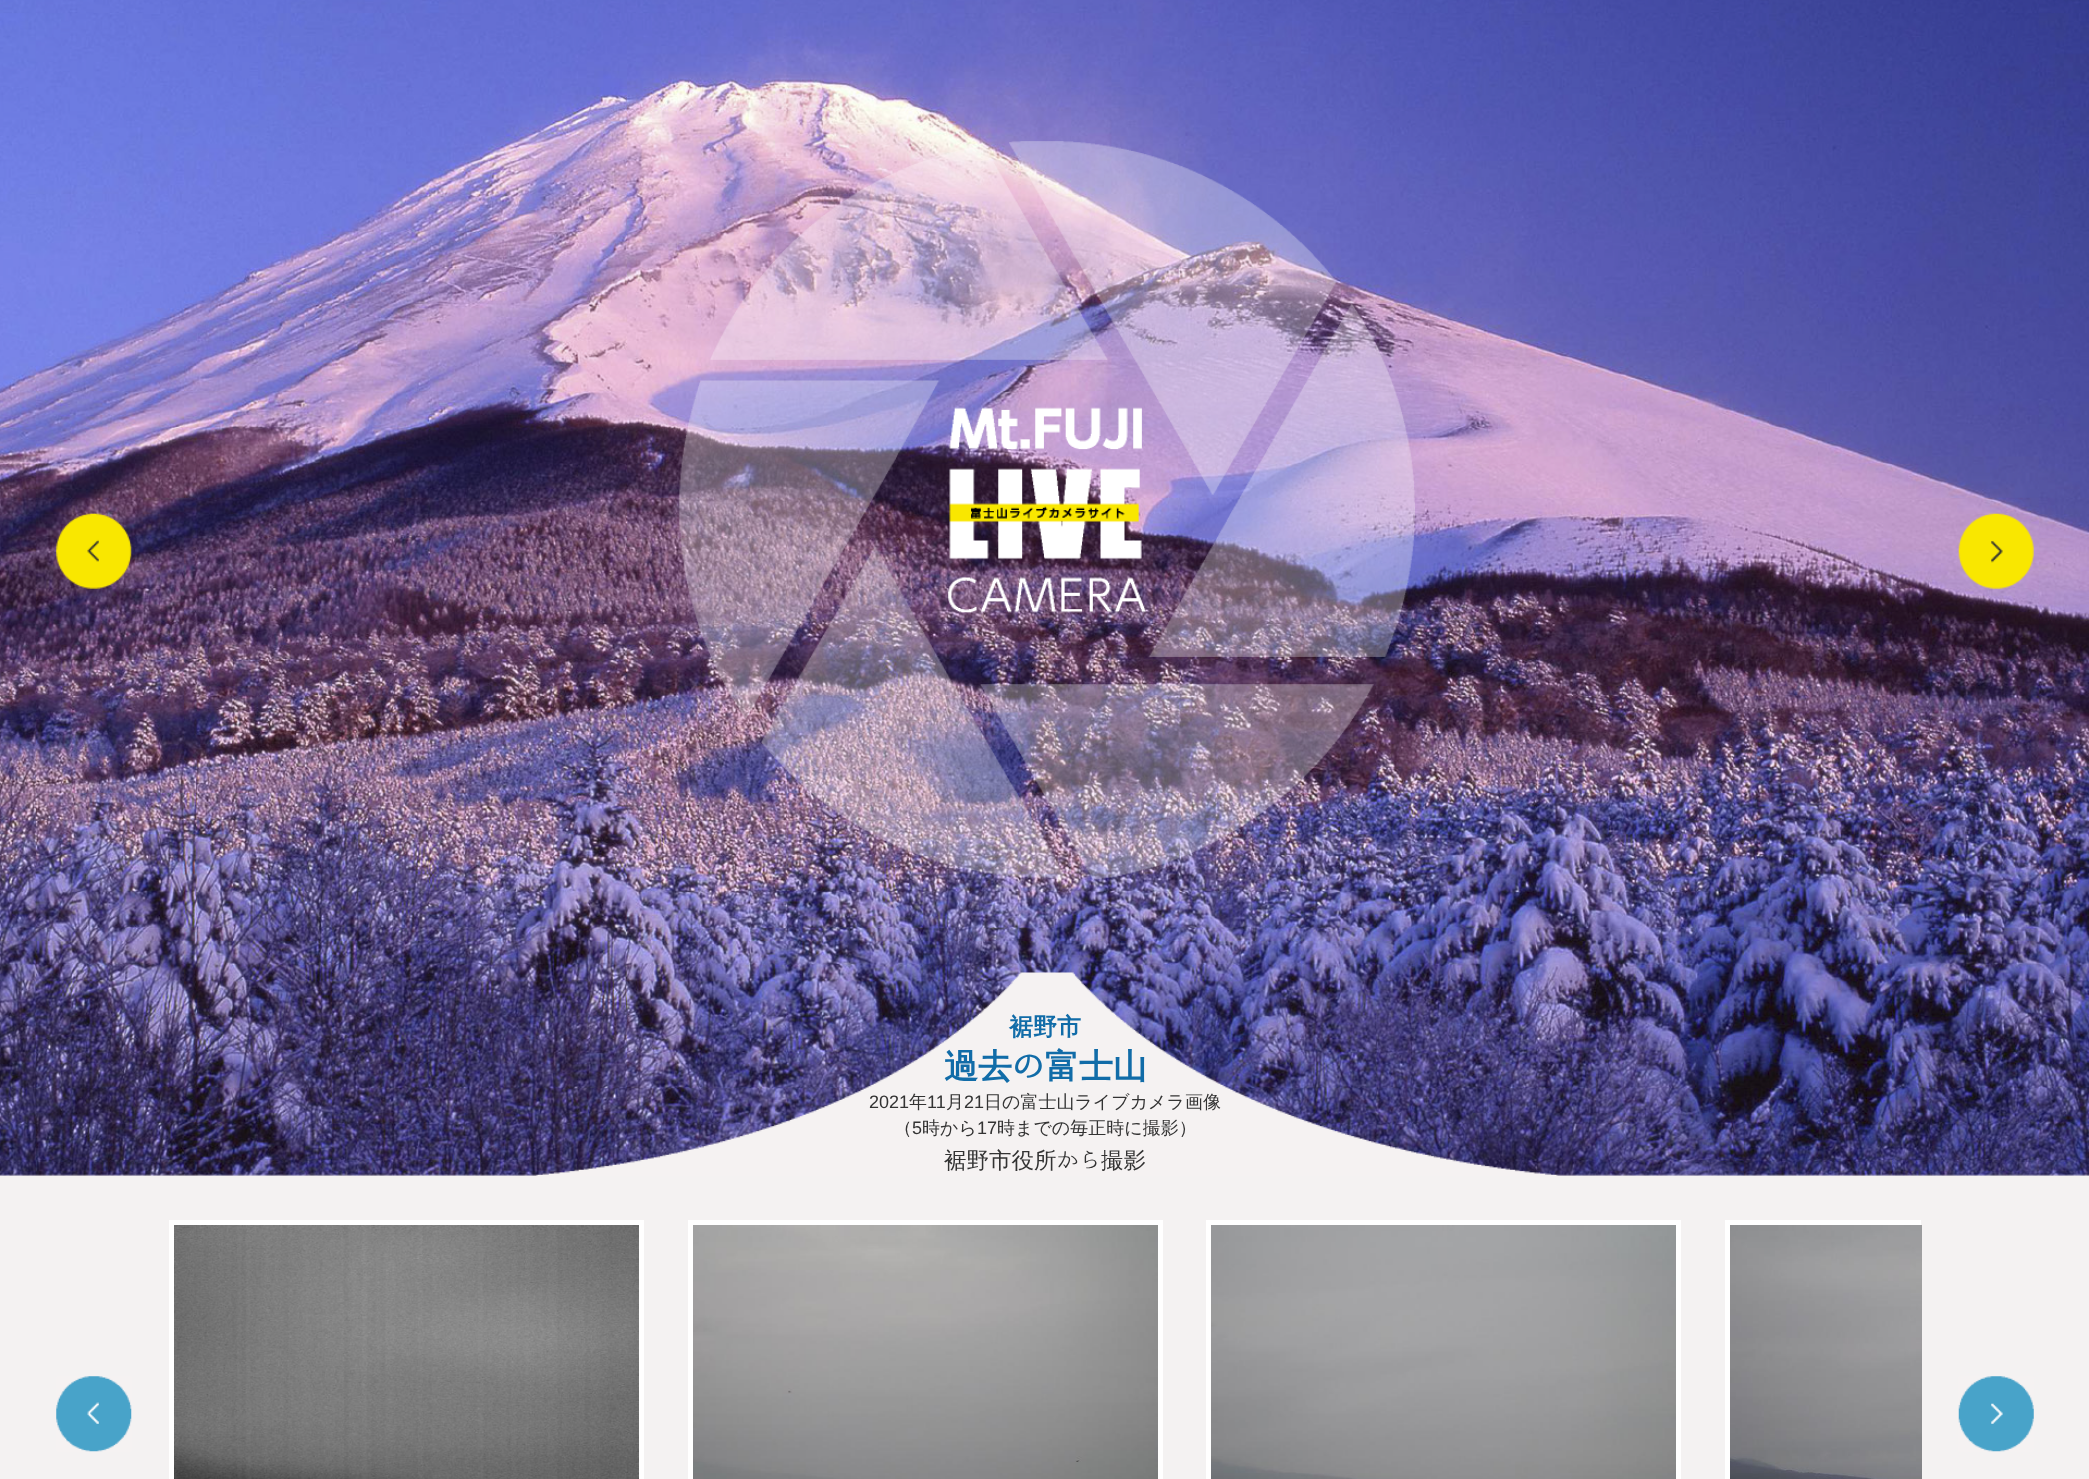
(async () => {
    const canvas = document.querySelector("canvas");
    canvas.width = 2089;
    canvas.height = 1479;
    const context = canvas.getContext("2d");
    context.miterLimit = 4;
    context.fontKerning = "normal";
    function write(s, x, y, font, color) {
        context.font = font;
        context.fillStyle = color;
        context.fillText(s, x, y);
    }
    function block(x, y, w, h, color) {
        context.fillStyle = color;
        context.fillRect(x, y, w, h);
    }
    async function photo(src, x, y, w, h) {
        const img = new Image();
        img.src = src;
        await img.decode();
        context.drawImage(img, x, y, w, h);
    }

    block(0, 0, 2089, 1479, "rgb(255, 255, 255)");
    await photo("media/1.png", 0, 0, 2089, 1176);
    await photo("media/2.png", 56, 513, 76, 76);
    await photo("media/3.png", 1958, 513, 76, 76);
    await photo("media/4.png", 679, 141, 736, 739);
    await photo("media/5.png", 0, 972, 2089, 204);
    write("裾野市", 1009, 1035, "bold 24px WenQuanYi Zen Hei", "rgb(17, 108, 168)");
    write("過去", 944, 1078, "bold 34px WenQuanYi Zen Hei", "rgb(17, 108, 168)");
    write("の", 1011, 1078, "bold 34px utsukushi", "rgb(17, 108, 168)");
    write("富士山", 1045, 1078, "bold 34px WenQuanYi Zen Hei", "rgb(17, 108, 168)");
    write("2021", 869, 1108, "18px Liberation Sans", "rgb(51, 51, 51)");
    write("年", 909, 1108, "500 18px WenQuanYi Zen Hei", "rgb(51, 51, 51)");
    write("11", 927, 1108, "18px Liberation Sans", "rgb(51, 51, 51)");
    write("月", 946, 1108, "500 18px WenQuanYi Zen Hei", "rgb(51, 51, 51)");
    write("21", 964, 1108, "18px Liberation Sans", "rgb(51, 51, 51)");
    write("日の富士山ライブカメラ画像", 984, 1108, "500 18px WenQuanYi Zen Hei", "rgb(51, 51, 51)");
    write("（", 894, 1134, "500 18px WenQuanYi Zen Hei", "rgb(51, 51, 51)");
    write("5", 912, 1134, "18px Liberation Sans", "rgb(51, 51, 51)");
    write("時から", 922, 1134, "500 18px WenQuanYi Zen Hei", "rgb(51, 51, 51)");
    write("17", 977, 1134, "18px Liberation Sans", "rgb(51, 51, 51)");
    write("時までの毎正時に撮影）", 997, 1134, "500 18px WenQuanYi Zen Hei", "rgb(51, 51, 51)");
    write("裾野市役所", 944, 1168, "500 22.5px WenQuanYi Zen Hei", "rgb(51, 51, 51)");
    write("から", 1056, 1168, "22.5px utsukushi", "rgb(51, 51, 51)");
    write("撮影", 1101, 1168, "500 22.5px WenQuanYi Zen Hei", "rgb(51, 51, 51)");
    block(0, 1176, 2089, 303, "rgb(244, 242, 242)");
    await photo("media/6.png", 56, 1376, 76, 76);
    context.strokeStyle = "rgb(255, 255, 255)";
    context.lineWidth = 5;
    context.strokeRect(171.5, 1222.5, 470, 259);
    await photo("media/7.png", 174, 1225, 465, 254);
    context.strokeRect(690.5, 1222.5, 470, 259);
    await photo("media/8.png", 693, 1225, 465, 254);
    context.strokeRect(1208.5, 1222.5, 470, 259);
    await photo("media/9.png", 1211, 1225, 465, 254);
    context.save();
    context.beginPath();
    context.rect(169, 1220, 1752, 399);
    context.clip();
    context.strokeRect(1727.5, 1222.5, 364, 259);
    context.restore();
    await photo("media/10.png", 1730, 1225, 192, 254);
    await photo("media/11.png", 1958, 1376, 76, 76);
})();
